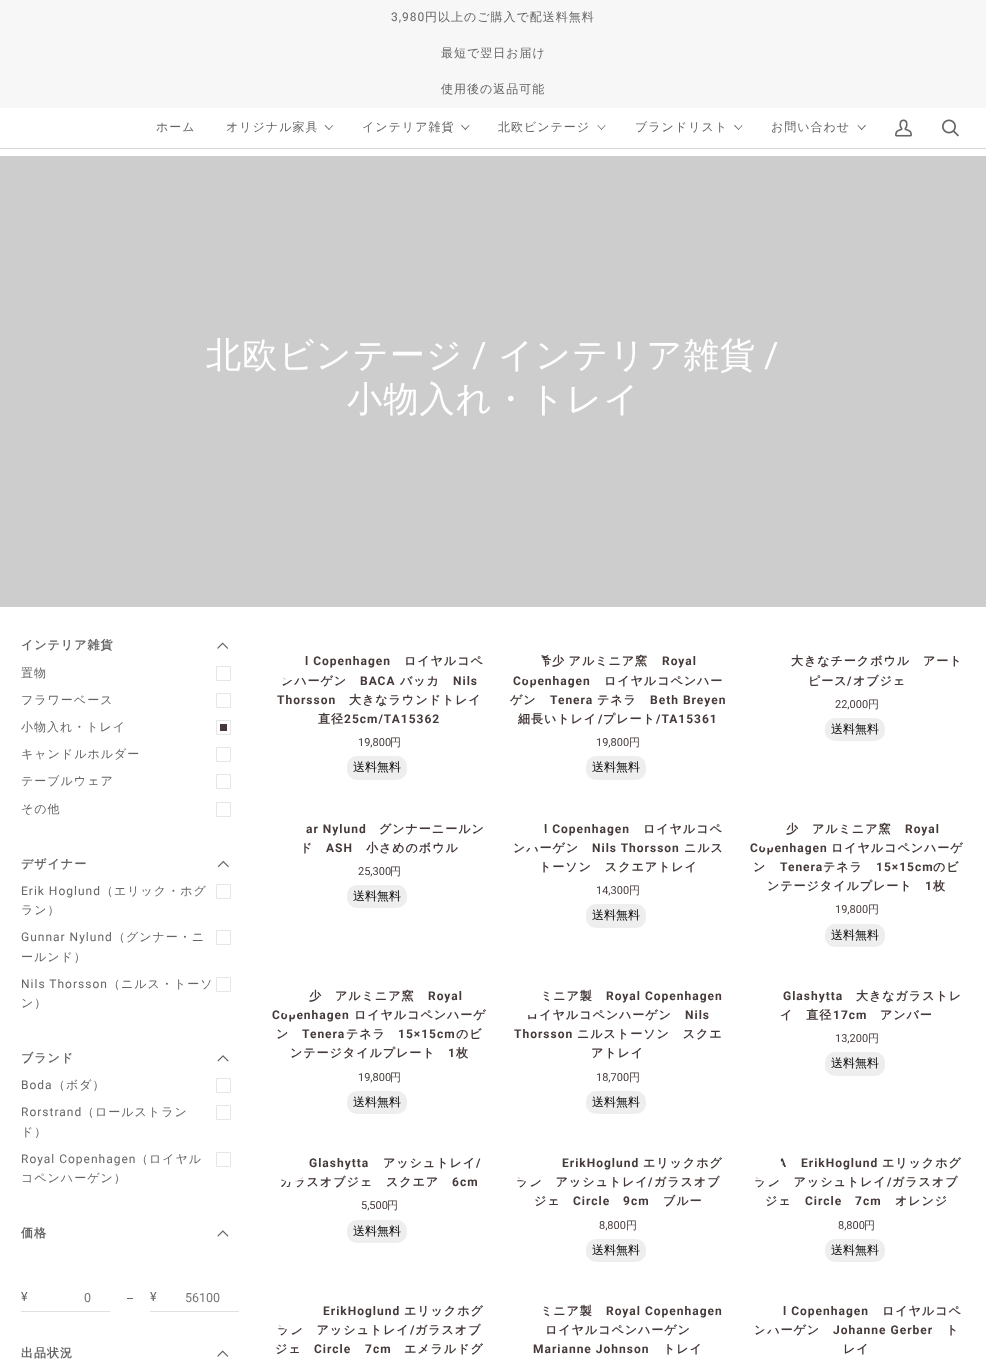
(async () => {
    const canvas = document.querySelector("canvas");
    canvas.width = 986;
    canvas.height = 1368;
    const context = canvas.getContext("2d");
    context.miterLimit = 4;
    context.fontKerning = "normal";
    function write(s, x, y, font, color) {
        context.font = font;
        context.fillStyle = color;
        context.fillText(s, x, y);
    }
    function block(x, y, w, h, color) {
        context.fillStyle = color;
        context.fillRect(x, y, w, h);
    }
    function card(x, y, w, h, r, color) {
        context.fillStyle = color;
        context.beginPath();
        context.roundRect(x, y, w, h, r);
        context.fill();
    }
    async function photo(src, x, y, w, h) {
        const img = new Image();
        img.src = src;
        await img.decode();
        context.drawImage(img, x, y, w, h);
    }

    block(0, 0, 986, 1368, "rgb(255, 255, 255)");
    block(0, 0, 986, 108, "rgb(247, 247, 247)");
    context.letterSpacing = "1px";
    write("3,980", 391, 21, "12px Roboto", "rgb(101, 101, 101)");
    write("円以上のご購入で配送料無料", 425, 21, "500 12px WenQuanYi Zen Hei", "rgb(101, 101, 101)");
    write("最短で翌日お届け", 441, 57, "500 12px WenQuanYi Zen Hei", "rgb(101, 101, 101)");
    write("使用後の返品可能", 441, 93, "500 12px WenQuanYi Zen Hei", "rgb(101, 101, 101)");
    block(0, 148, 986, 1, "rgb(215, 215, 215)");
    write("ホーム", 156, 131, "500 12px WenQuanYi Zen Hei", "rgb(101, 101, 101)");
    write("オリジナル家具", 226, 131, "500 12px WenQuanYi Zen Hei", "rgb(101, 101, 101)");
    context.beginPath();
    context.moveTo(328.5, 129.5);
    context.lineTo(332.5, 125);
    context.lineTo(333, 125.5);
    context.lineTo(329, 130);
    context.closePath();
    context.fill();
    context.beginPath();
    context.moveTo(324.5, 125.5);
    context.lineTo(325.5, 125);
    context.lineTo(329.5, 129.5);
    context.lineTo(329, 130);
    context.closePath();
    context.fill();
    write("インテリア雑貨", 362, 131, "500 12px WenQuanYi Zen Hei", "rgb(101, 101, 101)");
    context.beginPath();
    context.moveTo(464.5, 129.5);
    context.lineTo(469, 125);
    context.lineTo(469.5, 125.5);
    context.lineTo(465.5, 130);
    context.closePath();
    context.fill();
    context.beginPath();
    context.moveTo(461, 125.5);
    context.lineTo(462, 125);
    context.lineTo(466, 129.5);
    context.lineTo(465.5, 130);
    context.closePath();
    context.fill();
    write("北欧ビンテージ", 498, 131, "500 12px WenQuanYi Zen Hei", "rgb(101, 101, 101)");
    context.beginPath();
    context.moveTo(601, 129.5);
    context.lineTo(605, 125);
    context.lineTo(605.5, 125.5);
    context.lineTo(601.5, 130);
    context.closePath();
    context.fill();
    context.beginPath();
    context.moveTo(597.5, 125.5);
    context.lineTo(598, 125);
    context.lineTo(602, 129.5);
    context.lineTo(601.5, 130);
    context.closePath();
    context.fill();
    write("ブランドリスト", 635, 131, "500 12px WenQuanYi Zen Hei", "rgb(101, 101, 101)");
    context.beginPath();
    context.moveTo(738, 129.5);
    context.lineTo(742, 125);
    context.lineTo(742.5, 125.5);
    context.lineTo(738.5, 130);
    context.closePath();
    context.fill();
    context.beginPath();
    context.moveTo(734, 125.5);
    context.lineTo(735, 125);
    context.lineTo(739, 129.5);
    context.lineTo(738.5, 130);
    context.closePath();
    context.fill();
    write("お問い合わせ", 771, 131, "500 12px WenQuanYi Zen Hei", "rgb(101, 101, 101)");
    context.beginPath();
    context.moveTo(861, 129.5);
    context.lineTo(865, 125);
    context.lineTo(866, 125.5);
    context.lineTo(861.5, 130);
    context.closePath();
    context.fill();
    context.beginPath();
    context.moveTo(857.5, 125.5);
    context.lineTo(858, 125);
    context.lineTo(862.5, 129.5);
    context.lineTo(861.5, 130);
    context.closePath();
    context.fill();
    await photo("media/1.png", 895, 119, 17, 18);
    await photo("media/2.png", 942, 119, 17, 18);
    block(0, 156, 986, 451, "rgb(205, 205, 205)");
    write("北欧ビンテージ", 206, 367, "500 35.25px WenQuanYi Zen Hei", "rgb(255, 255, 255)");
    write("/", 472, 367, "35.25px Roboto", "rgb(255, 255, 255)");
    write("インテリア雑貨", 498, 367, "500 35.25px WenQuanYi Zen Hei", "rgb(255, 255, 255)");
    write("/", 764, 367, "35.25px Roboto", "rgb(255, 255, 255)");
    write("小物入れ・トレイ", 347, 411, "500 35.25px WenQuanYi Zen Hei", "rgb(255, 255, 255)");
    write("インテリア雑貨", 21, 649, "bold 12px WenQuanYi Zen Hei", "rgb(101, 101, 101)");
    await photo("media/3.png", 217, 642, 12, 7);
    write("置物", 21, 677, "500 12px WenQuanYi Zen Hei", "rgb(101, 101, 101)");
    context.beginPath();
    context.moveTo(216.5, 666.5);
    context.lineTo(230.5, 666.5);
    context.lineTo(230.5, 680.5);
    context.lineTo(216.5, 680.5);
    context.closePath();
    context.moveTo(216.5, 693.5);
    context.lineTo(230.5, 693.5);
    context.lineTo(230.5, 707.5);
    context.lineTo(216.5, 707.5);
    context.closePath();
    context.strokeStyle = "rgb(224, 224, 224)";
    context.lineWidth = 0.8;
    context.stroke();
    write("フラワーベース", 21, 704, "500 12px WenQuanYi Zen Hei", "rgb(101, 101, 101)");
    write("小物入れ・トレイ", 21, 731, "500 12px WenQuanYi Zen Hei", "rgb(101, 101, 101)");
    context.beginPath();
    context.moveTo(216.5, 720.5);
    context.lineTo(230.5, 720.5);
    context.lineTo(230.5, 734.5);
    context.lineTo(216.5, 734.5);
    context.closePath();
    context.stroke();
    block(220, 724, 7, 7, "rgb(69, 57, 57)");
    write("キャンドルホルダー", 21, 758, "500 12px WenQuanYi Zen Hei", "rgb(101, 101, 101)");
    context.beginPath();
    context.moveTo(216.5, 747.5);
    context.lineTo(230.5, 747.5);
    context.lineTo(230.5, 761.5);
    context.lineTo(216.5, 761.5);
    context.closePath();
    context.moveTo(216.5, 774.5);
    context.lineTo(230.5, 774.5);
    context.lineTo(230.5, 788.5);
    context.lineTo(216.5, 788.5);
    context.closePath();
    context.stroke();
    write("テーブルウェア", 21, 785, "500 12px WenQuanYi Zen Hei", "rgb(101, 101, 101)");
    write("その他", 21, 813, "500 12px WenQuanYi Zen Hei", "rgb(101, 101, 101)");
    context.beginPath();
    context.moveTo(216.5, 802.5);
    context.lineTo(230.5, 802.5);
    context.lineTo(230.5, 816.5);
    context.lineTo(216.5, 816.5);
    context.closePath();
    context.stroke();
    write("デザイナー", 21, 868, "bold 12px WenQuanYi Zen Hei", "rgb(101, 101, 101)");
    await photo("media/4.png", 217, 860, 12, 8);
    write("Erik Hoglund", 21, 895, "12px Roboto", "rgb(101, 101, 101)");
    write("（エリック・ホグ", 101, 895, "500 12px WenQuanYi Zen Hei", "rgb(101, 101, 101)");
    context.beginPath();
    context.moveTo(216.5, 884.5);
    context.lineTo(230.5, 884.5);
    context.lineTo(230.5, 898.5);
    context.lineTo(216.5, 898.5);
    context.closePath();
    context.stroke();
    write("ラン）", 21, 914, "500 12px WenQuanYi Zen Hei", "rgb(101, 101, 101)");
    write("Gunnar Nylund", 21, 941, "12px Roboto", "rgb(101, 101, 101)");
    write("（グンナー・ニ", 113, 941, "500 12px WenQuanYi Zen Hei", "rgb(101, 101, 101)");
    context.beginPath();
    context.moveTo(216.5, 930.5);
    context.lineTo(230.5, 930.5);
    context.lineTo(230.5, 944.5);
    context.lineTo(216.5, 944.5);
    context.closePath();
    context.stroke();
    write("ールンド）", 21, 961, "500 12px WenQuanYi Zen Hei", "rgb(101, 101, 101)");
    write("Nils Thorsson", 21, 988, "12px Roboto", "rgb(101, 101, 101)");
    write("（ニルス・トーソ", 108, 988, "500 12px WenQuanYi Zen Hei", "rgb(101, 101, 101)");
    context.beginPath();
    context.moveTo(216.5, 977.5);
    context.lineTo(230.5, 977.5);
    context.lineTo(230.5, 991.5);
    context.lineTo(216.5, 991.5);
    context.closePath();
    context.stroke();
    write("ン）", 21, 1007, "500 12px WenQuanYi Zen Hei", "rgb(101, 101, 101)");
    write("ブランド", 21, 1062, "bold 12px WenQuanYi Zen Hei", "rgb(101, 101, 101)");
    await photo("media/5.png", 217, 1055, 12, 7);
    write("Boda", 21, 1089, "12px Roboto", "rgb(101, 101, 101)");
    write("（ボダ）", 53, 1089, "500 12px WenQuanYi Zen Hei", "rgb(101, 101, 101)");
    context.beginPath();
    context.moveTo(216.5, 1078.5);
    context.lineTo(230.5, 1078.5);
    context.lineTo(230.5, 1092.5);
    context.lineTo(216.5, 1092.5);
    context.closePath();
    context.stroke();
    write("Rorstrand", 21, 1116, "12px Roboto", "rgb(101, 101, 101)");
    write("（ロールストラン", 82, 1116, "500 12px WenQuanYi Zen Hei", "rgb(101, 101, 101)");
    context.beginPath();
    context.moveTo(216.5, 1105.5);
    context.lineTo(230.5, 1105.5);
    context.lineTo(230.5, 1119.5);
    context.lineTo(216.5, 1119.5);
    context.closePath();
    context.stroke();
    write("ド）", 21, 1136, "500 12px WenQuanYi Zen Hei", "rgb(101, 101, 101)");
    write("Royal Copenhagen", 21, 1163, "12px Roboto", "rgb(101, 101, 101)");
    write("（ロイヤル", 136, 1163, "500 12px WenQuanYi Zen Hei", "rgb(101, 101, 101)");
    context.beginPath();
    context.moveTo(216.5, 1152.5);
    context.lineTo(230.5, 1152.5);
    context.lineTo(230.5, 1166.5);
    context.lineTo(216.5, 1166.5);
    context.closePath();
    context.stroke();
    write("コペンハーゲン）", 21, 1182, "500 12px WenQuanYi Zen Hei", "rgb(101, 101, 101)");
    write("価格", 21, 1237, "bold 12px WenQuanYi Zen Hei", "rgb(101, 101, 101)");
    await photo("media/6.png", 217, 1230, 12, 7);
    block(21, 1311, 89, 1, "rgb(224, 224, 224)");
    context.letterSpacing = "0px";
    write("¥", 21, 1301, "12.5px Roboto", "rgb(101, 101, 101)");
    write("0", 84, 1302, "12.5px Roboto", "rgb(117, 117, 117)");
    block(127, 1298, 6, 1, "rgb(101, 101, 101)");
    block(150, 1311, 89, 1, "rgb(224, 224, 224)");
    write("¥", 150, 1301, "12.5px Roboto", "rgb(101, 101, 101)");
    write("56100", 185, 1302, "12.5px Roboto", "rgb(117, 117, 117)");
    context.letterSpacing = "1px";
    write("出品状況", 21, 1357, "bold 12px WenQuanYi Zen Hei", "rgb(101, 101, 101)");
    await photo("media/7.png", 217, 1350, 12, 7);
    write("ンハーゲン", 281, 685, "bold 12px WenQuanYi Zen Hei", "rgb(69, 57, 57)");
    context.fillStyle = "rgb(255, 255, 255)";
    context.beginPath();
    context.ellipse(291, 666, 15, 14, 0, 0, Math.PI * 2);
    context.fill();
    write("l Copenhagen", 305, 665, "bold 12px Roboto", "rgb(69, 57, 57)");
    write("ロイヤルコペ", 404, 665, "bold 12px WenQuanYi Zen Hei", "rgb(69, 57, 57)");
    write("BACA", 360, 685, "bold 12px Roboto", "rgb(69, 57, 57)");
    write("バッカ", 400, 685, "bold 12px WenQuanYi Zen Hei", "rgb(69, 57, 57)");
    write("Nils", 453, 685, "bold 12px Roboto", "rgb(69, 57, 57)");
    write("Thorsson", 277, 704, "bold 12px Roboto", "rgb(69, 57, 57)");
    write("大きなラウンドトレイ", 349, 704, "bold 12px WenQuanYi Zen Hei", "rgb(69, 57, 57)");
    write("直径", 318, 723, "bold 12px WenQuanYi Zen Hei", "rgb(69, 57, 57)");
    write("25cm/TA15362", 344, 723, "bold 12px Roboto", "rgb(69, 57, 57)");
    context.letterSpacing = "0px";
    write("19,800", 358, 746, "11px Roboto", "rgb(69, 57, 57)");
    write("円", 390, 746, "500 11px WenQuanYi Zen Hei", "rgb(69, 57, 57)");
    card(347, 756, 60, 24, 10, "rgb(238, 238, 238)");
    write("送料無料", 353, 771, "500 12px WenQuanYi Zen Hei", "rgb(0, 0, 0)");
    context.letterSpacing = "1px";
    context.wordSpacing = "-1px";
    write("希少 アルミニア窯", 539, 665, "bold 12px WenQuanYi Zen Hei", "rgb(69, 57, 57)");
    context.wordSpacing = "0px";
    write("Copenhagen", 513, 685, "bold 12px Roboto", "rgb(69, 57, 57)");
    context.fillStyle = "rgb(255, 255, 255)";
    context.beginPath();
    context.ellipse(530, 666, 15, 14, 0, 0, Math.PI * 2);
    context.fill();
    write("Royal", 662, 665, "bold 12px Roboto", "rgb(69, 57, 57)");
    write("ロイヤルコペンハー", 604, 685, "bold 12px WenQuanYi Zen Hei", "rgb(69, 57, 57)");
    write("ゲン", 510, 704, "bold 12px WenQuanYi Zen Hei", "rgb(69, 57, 57)");
    write("Tenera", 550, 704, "bold 12px Roboto", "rgb(69, 57, 57)");
    write("テネラ", 597, 704, "bold 12px WenQuanYi Zen Hei", "rgb(69, 57, 57)");
    write("Beth Breyen", 650, 704, "bold 12px Roboto", "rgb(69, 57, 57)");
    write("細長いトレイ", 518, 723, "bold 12px WenQuanYi Zen Hei", "rgb(69, 57, 57)");
    write("/", 598, 723, "bold 12px Roboto", "rgb(69, 57, 57)");
    write("プレート", 603, 723, "bold 12px WenQuanYi Zen Hei", "rgb(69, 57, 57)");
    write("/TA15361", 656, 723, "bold 12px Roboto", "rgb(69, 57, 57)");
    context.letterSpacing = "0px";
    write("19,800", 596, 746, "11px Roboto", "rgb(69, 57, 57)");
    write("円", 629, 746, "500 11px WenQuanYi Zen Hei", "rgb(69, 57, 57)");
    card(586, 756, 60, 24, 10, "rgb(238, 238, 238)");
    write("送料無料", 592, 771, "500 12px WenQuanYi Zen Hei", "rgb(0, 0, 0)");
    context.letterSpacing = "1px";
    write("大きなチークボウル　アート", 791, 665, "bold 12px WenQuanYi Zen Hei", "rgb(69, 57, 57)");
    write("ピース", 808, 685, "bold 12px WenQuanYi Zen Hei", "rgb(69, 57, 57)");
    write("/", 847, 685, "bold 12px Roboto", "rgb(69, 57, 57)");
    write("オブジェ", 853, 685, "bold 12px WenQuanYi Zen Hei", "rgb(69, 57, 57)");
    context.letterSpacing = "0px";
    write("22,000", 835, 708, "11px Roboto", "rgb(69, 57, 57)");
    write("円", 868, 708, "500 11px WenQuanYi Zen Hei", "rgb(69, 57, 57)");
    card(825, 718, 60, 23, 10, "rgb(238, 238, 238)");
    write("送料無料", 831, 733, "500 12px WenQuanYi Zen Hei", "rgb(0, 0, 0)");
    context.letterSpacing = "1px";
    write("ar Nylund", 306, 833, "bold 12px Roboto", "rgb(69, 57, 57)");
    write("グンナーニールン", 379, 833, "bold 12px WenQuanYi Zen Hei", "rgb(69, 57, 57)");
    write("ド", 300, 852, "bold 12px WenQuanYi Zen Hei", "rgb(69, 57, 57)");
    write("ASH", 326, 852, "bold 12px Roboto", "rgb(69, 57, 57)");
    write("小さめのボウル", 366, 852, "bold 12px WenQuanYi Zen Hei", "rgb(69, 57, 57)");
    context.letterSpacing = "0px";
    write("25,300", 358, 875, "11px Roboto", "rgb(69, 57, 57)");
    write("円", 390, 875, "500 11px WenQuanYi Zen Hei", "rgb(69, 57, 57)");
    card(347, 885, 60, 23, 10, "rgb(238, 238, 238)");
    write("送料無料", 353, 900, "500 12px WenQuanYi Zen Hei", "rgb(0, 0, 0)");
    context.letterSpacing = "1px";
    write("l Copenhagen", 544, 833, "bold 12px Roboto", "rgb(69, 57, 57)");
    write("ンハーゲン", 513, 852, "bold 12px WenQuanYi Zen Hei", "rgb(69, 57, 57)");
    context.fillStyle = "rgb(255, 255, 255)";
    context.beginPath();
    context.ellipse(530, 834, 15, 14, 0, 0, Math.PI * 2);
    context.fill();
    write("ロイヤルコペ", 643, 833, "bold 12px WenQuanYi Zen Hei", "rgb(69, 57, 57)");
    write("Nils Thorsson", 592, 852, "bold 12px Roboto", "rgb(69, 57, 57)");
    write("ニルス", 684, 852, "bold 12px WenQuanYi Zen Hei", "rgb(69, 57, 57)");
    write("トーソン　スクエアトレイ", 539, 871, "bold 12px WenQuanYi Zen Hei", "rgb(69, 57, 57)");
    context.letterSpacing = "0px";
    write("14,300", 596, 894, "11px Roboto", "rgb(69, 57, 57)");
    write("円", 629, 894, "500 11px WenQuanYi Zen Hei", "rgb(69, 57, 57)");
    card(586, 904, 60, 24, 10, "rgb(238, 238, 238)");
    write("送料無料", 592, 919, "500 12px WenQuanYi Zen Hei", "rgb(0, 0, 0)");
    context.letterSpacing = "1px";
    write("Copenhagen", 750, 852, "bold 12px Roboto", "rgb(69, 57, 57)");
    context.fillStyle = "rgb(255, 255, 255)";
    context.beginPath();
    context.ellipse(768, 834, 15, 14, 0, 0, Math.PI * 2);
    context.fill();
    write("少　アルミニア窯", 786, 833, "bold 12px WenQuanYi Zen Hei", "rgb(69, 57, 57)");
    write("Royal", 905, 833, "bold 12px Roboto", "rgb(69, 57, 57)");
    write("ロイヤルコペンハーゲ", 831, 852, "bold 12px WenQuanYi Zen Hei", "rgb(69, 57, 57)");
    write("ン", 753, 871, "bold 12px WenQuanYi Zen Hei", "rgb(69, 57, 57)");
    write("Tenera", 780, 871, "bold 12px Roboto", "rgb(69, 57, 57)");
    write("テネラ", 823, 871, "bold 12px WenQuanYi Zen Hei", "rgb(69, 57, 57)");
    write("15×15cm", 876, 871, "bold 12px Roboto", "rgb(69, 57, 57)");
    write("のビ", 933, 871, "bold 12px WenQuanYi Zen Hei", "rgb(69, 57, 57)");
    write("ンテージタイルプレート", 767, 890, "bold 12px WenQuanYi Zen Hei", "rgb(69, 57, 57)");
    write("1", 925, 890, "bold 12px Roboto", "rgb(69, 57, 57)");
    write("枚", 933, 890, "bold 12px WenQuanYi Zen Hei", "rgb(69, 57, 57)");
    context.letterSpacing = "0px";
    write("19,800", 835, 913, "11px Roboto", "rgb(69, 57, 57)");
    write("円", 868, 913, "500 11px WenQuanYi Zen Hei", "rgb(69, 57, 57)");
    card(825, 924, 60, 23, 10, "rgb(238, 238, 238)");
    write("送料無料", 831, 939, "500 12px WenQuanYi Zen Hei", "rgb(0, 0, 0)");
    context.letterSpacing = "1px";
    write("Copenhagen", 272, 1019, "bold 12px Roboto", "rgb(69, 57, 57)");
    context.fillStyle = "rgb(255, 255, 255)";
    context.beginPath();
    context.ellipse(291, 1001, 15, 14, 0, 0, Math.PI * 2);
    context.fill();
    write("少　アルミニア窯", 309, 1000, "bold 12px WenQuanYi Zen Hei", "rgb(69, 57, 57)");
    write("Royal", 428, 1000, "bold 12px Roboto", "rgb(69, 57, 57)");
    write("ロイヤルコペンハーゲ", 354, 1019, "bold 12px WenQuanYi Zen Hei", "rgb(69, 57, 57)");
    write("ン", 276, 1038, "bold 12px WenQuanYi Zen Hei", "rgb(69, 57, 57)");
    write("Tenera", 302, 1038, "bold 12px Roboto", "rgb(69, 57, 57)");
    write("テネラ", 346, 1038, "bold 12px WenQuanYi Zen Hei", "rgb(69, 57, 57)");
    write("15×15cm", 398, 1038, "bold 12px Roboto", "rgb(69, 57, 57)");
    write("のビ", 456, 1038, "bold 12px WenQuanYi Zen Hei", "rgb(69, 57, 57)");
    write("ンテージタイルプレート", 290, 1057, "bold 12px WenQuanYi Zen Hei", "rgb(69, 57, 57)");
    write("1", 448, 1057, "bold 12px Roboto", "rgb(69, 57, 57)");
    write("枚", 456, 1057, "bold 12px WenQuanYi Zen Hei", "rgb(69, 57, 57)");
    context.letterSpacing = "0px";
    write("19,800", 358, 1081, "11px Roboto", "rgb(69, 57, 57)");
    write("円", 390, 1081, "500 11px WenQuanYi Zen Hei", "rgb(69, 57, 57)");
    card(347, 1091, 60, 23, 10, "rgb(238, 238, 238)");
    write("送料無料", 353, 1106, "500 12px WenQuanYi Zen Hei", "rgb(0, 0, 0)");
    context.letterSpacing = "1px";
    write("ミニア製", 540, 1000, "bold 12px WenQuanYi Zen Hei", "rgb(69, 57, 57)");
    write("ロイヤルコペンハーゲン", 526, 1019, "bold 12px WenQuanYi Zen Hei", "rgb(69, 57, 57)");
    context.fillStyle = "rgb(255, 255, 255)";
    context.beginPath();
    context.ellipse(530, 1001, 15, 14, 0, 0, Math.PI * 2);
    context.fill();
    write("Royal Copenhagen", 606, 1000, "bold 12px Roboto", "rgb(69, 57, 57)");
    write("Nils", 685, 1019, "bold 12px Roboto", "rgb(69, 57, 57)");
    write("Thorsson", 514, 1038, "bold 12px Roboto", "rgb(69, 57, 57)");
    write("ニルストーソン　スクエ", 577, 1038, "bold 12px WenQuanYi Zen Hei", "rgb(69, 57, 57)");
    write("アトレイ", 591, 1057, "bold 12px WenQuanYi Zen Hei", "rgb(69, 57, 57)");
    context.letterSpacing = "0px";
    write("18,700", 596, 1081, "11px Roboto", "rgb(69, 57, 57)");
    write("円", 629, 1081, "500 11px WenQuanYi Zen Hei", "rgb(69, 57, 57)");
    card(586, 1091, 60, 23, 10, "rgb(238, 238, 238)");
    write("送料無料", 592, 1106, "500 12px WenQuanYi Zen Hei", "rgb(0, 0, 0)");
    context.letterSpacing = "1px";
    write("Glashytta", 783, 1000, "bold 12px Roboto", "rgb(69, 57, 57)");
    write("大きなガラストレ", 856, 1000, "bold 12px WenQuanYi Zen Hei", "rgb(69, 57, 57)");
    write("イ　直径", 780, 1019, "bold 12px WenQuanYi Zen Hei", "rgb(69, 57, 57)");
    write("17cm", 833, 1019, "bold 12px Roboto", "rgb(69, 57, 57)");
    write("アンバー", 880, 1019, "bold 12px WenQuanYi Zen Hei", "rgb(69, 57, 57)");
    context.letterSpacing = "0px";
    write("13,200", 835, 1042, "11px Roboto", "rgb(69, 57, 57)");
    write("円", 868, 1042, "500 11px WenQuanYi Zen Hei", "rgb(69, 57, 57)");
    card(825, 1052, 60, 24, 10, "rgb(238, 238, 238)");
    write("送料無料", 831, 1067, "500 12px WenQuanYi Zen Hei", "rgb(0, 0, 0)");
    context.letterSpacing = "1px";
    write("ガラスオブジェ　スクエア", 280, 1186, "bold 12px WenQuanYi Zen Hei", "rgb(69, 57, 57)");
    context.fillStyle = "rgb(255, 255, 255)";
    context.beginPath();
    context.ellipse(291, 1168, 15, 14, 0, 0, Math.PI * 2);
    context.fill();
    write("Glashytta", 309, 1167, "bold 12px Roboto", "rgb(69, 57, 57)");
    write("アッシュトレイ", 383, 1167, "bold 12px WenQuanYi Zen Hei", "rgb(69, 57, 57)");
    write("/", 476, 1167, "bold 12px Roboto", "rgb(69, 57, 57)");
    write("6cm", 452, 1186, "bold 12px Roboto", "rgb(69, 57, 57)");
    context.letterSpacing = "0px";
    write("5,500", 361, 1209, "11px Roboto", "rgb(69, 57, 57)");
    write("円", 387, 1209, "500 11px WenQuanYi Zen Hei", "rgb(69, 57, 57)");
    card(347, 1220, 60, 23, 10, "rgb(238, 238, 238)");
    write("送料無料", 353, 1235, "500 12px WenQuanYi Zen Hei", "rgb(0, 0, 0)");
    context.letterSpacing = "1px";
    write("ラン　アッシュトレイ", 516, 1186, "bold 12px WenQuanYi Zen Hei", "rgb(69, 57, 57)");
    context.fillStyle = "rgb(255, 255, 255)";
    context.beginPath();
    context.ellipse(530, 1168, 15, 14, 0, 0, Math.PI * 2);
    context.fill();
    write("ErikHoglund", 562, 1167, "bold 12px Roboto", "rgb(69, 57, 57)");
    write("エリックホグ", 643, 1167, "bold 12px WenQuanYi Zen Hei", "rgb(69, 57, 57)");
    write("/", 648, 1186, "bold 12px Roboto", "rgb(69, 57, 57)");
    write("ガラスオブ", 654, 1186, "bold 12px WenQuanYi Zen Hei", "rgb(69, 57, 57)");
    write("ジェ", 534, 1205, "bold 12px WenQuanYi Zen Hei", "rgb(69, 57, 57)");
    write("Circle", 573, 1205, "bold 12px Roboto", "rgb(69, 57, 57)");
    write("9cm", 623, 1205, "bold 12px Roboto", "rgb(69, 57, 57)");
    write("ブルー", 663, 1205, "bold 12px WenQuanYi Zen Hei", "rgb(69, 57, 57)");
    context.letterSpacing = "0px";
    write("8,800", 599, 1229, "11px Roboto", "rgb(69, 57, 57)");
    write("円", 626, 1229, "500 11px WenQuanYi Zen Hei", "rgb(69, 57, 57)");
    card(586, 1239, 60, 23, 10, "rgb(238, 238, 238)");
    write("送料無料", 592, 1254, "500 12px WenQuanYi Zen Hei", "rgb(0, 0, 0)");
    context.letterSpacing = "1px";
    write("A", 778, 1167, "bold 12px Roboto", "rgb(69, 57, 57)");
    write("ラン　アッシュトレイ", 754, 1186, "bold 12px WenQuanYi Zen Hei", "rgb(69, 57, 57)");
    context.fillStyle = "rgb(255, 255, 255)";
    context.beginPath();
    context.ellipse(768, 1168, 15, 14, 0, 0, Math.PI * 2);
    context.fill();
    write("ErikHoglund", 801, 1167, "bold 12px Roboto", "rgb(69, 57, 57)");
    write("エリックホグ", 882, 1167, "bold 12px WenQuanYi Zen Hei", "rgb(69, 57, 57)");
    write("/", 887, 1186, "bold 12px Roboto", "rgb(69, 57, 57)");
    write("ガラスオブ", 892, 1186, "bold 12px WenQuanYi Zen Hei", "rgb(69, 57, 57)");
    write("ジェ", 765, 1205, "bold 12px WenQuanYi Zen Hei", "rgb(69, 57, 57)");
    write("Circle", 805, 1205, "bold 12px Roboto", "rgb(69, 57, 57)");
    write("7cm", 855, 1205, "bold 12px Roboto", "rgb(69, 57, 57)");
    write("オレンジ", 895, 1205, "bold 12px WenQuanYi Zen Hei", "rgb(69, 57, 57)");
    context.letterSpacing = "0px";
    write("8,800", 838, 1229, "11px Roboto", "rgb(69, 57, 57)");
    write("円", 864, 1229, "500 11px WenQuanYi Zen Hei", "rgb(69, 57, 57)");
    card(825, 1239, 60, 23, 10, "rgb(238, 238, 238)");
    write("送料無料", 831, 1254, "500 12px WenQuanYi Zen Hei", "rgb(0, 0, 0)");
    context.letterSpacing = "1px";
    write("ラン　アッシュトレイ", 277, 1334, "bold 12px WenQuanYi Zen Hei", "rgb(69, 57, 57)");
    context.fillStyle = "rgb(255, 255, 255)";
    context.beginPath();
    context.ellipse(291, 1316, 15, 14, 0, 0, Math.PI * 2);
    context.fill();
    write("ErikHoglund", 323, 1315, "bold 12px Roboto", "rgb(69, 57, 57)");
    write("エリックホグ", 404, 1315, "bold 12px WenQuanYi Zen Hei", "rgb(69, 57, 57)");
    write("/", 410, 1334, "bold 12px Roboto", "rgb(69, 57, 57)");
    write("ガラスオブ", 415, 1334, "bold 12px WenQuanYi Zen Hei", "rgb(69, 57, 57)");
    write("ジェ", 275, 1353, "bold 12px WenQuanYi Zen Hei", "rgb(69, 57, 57)");
    write("Circle", 314, 1353, "bold 12px Roboto", "rgb(69, 57, 57)");
    write("7cm", 365, 1353, "bold 12px Roboto", "rgb(69, 57, 57)");
    write("エメラルドグ", 404, 1353, "bold 12px WenQuanYi Zen Hei", "rgb(69, 57, 57)");
    write("ミニア製", 540, 1315, "bold 12px WenQuanYi Zen Hei", "rgb(69, 57, 57)");
    context.fillStyle = "rgb(255, 255, 255)";
    context.beginPath();
    context.ellipse(530, 1316, 15, 14, 0, 0, Math.PI * 2);
    context.fill();
    write("Royal Copenhagen", 606, 1315, "bold 12px Roboto", "rgb(69, 57, 57)");
    write("ロイヤルコペンハーゲン", 545, 1334, "bold 12px WenQuanYi Zen Hei", "rgb(69, 57, 57)");
    write("Marianne Johnson", 533, 1353, "bold 12px Roboto", "rgb(69, 57, 57)");
    write("トレイ", 663, 1353, "bold 12px WenQuanYi Zen Hei", "rgb(69, 57, 57)");
    write("ンハーゲン", 754, 1334, "bold 12px WenQuanYi Zen Hei", "rgb(69, 57, 57)");
    context.fillStyle = "rgb(255, 255, 255)";
    context.beginPath();
    context.ellipse(768, 1316, 15, 14, 0, 0, Math.PI * 2);
    context.fill();
    write("l Copenhagen", 783, 1315, "bold 12px Roboto", "rgb(69, 57, 57)");
    write("ロイヤルコペ", 882, 1315, "bold 12px WenQuanYi Zen Hei", "rgb(69, 57, 57)");
    write("Johanne Gerber", 833, 1334, "bold 12px Roboto", "rgb(69, 57, 57)");
    write("ト", 946, 1334, "bold 12px WenQuanYi Zen Hei", "rgb(69, 57, 57)");
    write("レイ", 843, 1353, "bold 12px WenQuanYi Zen Hei", "rgb(69, 57, 57)");
})();
